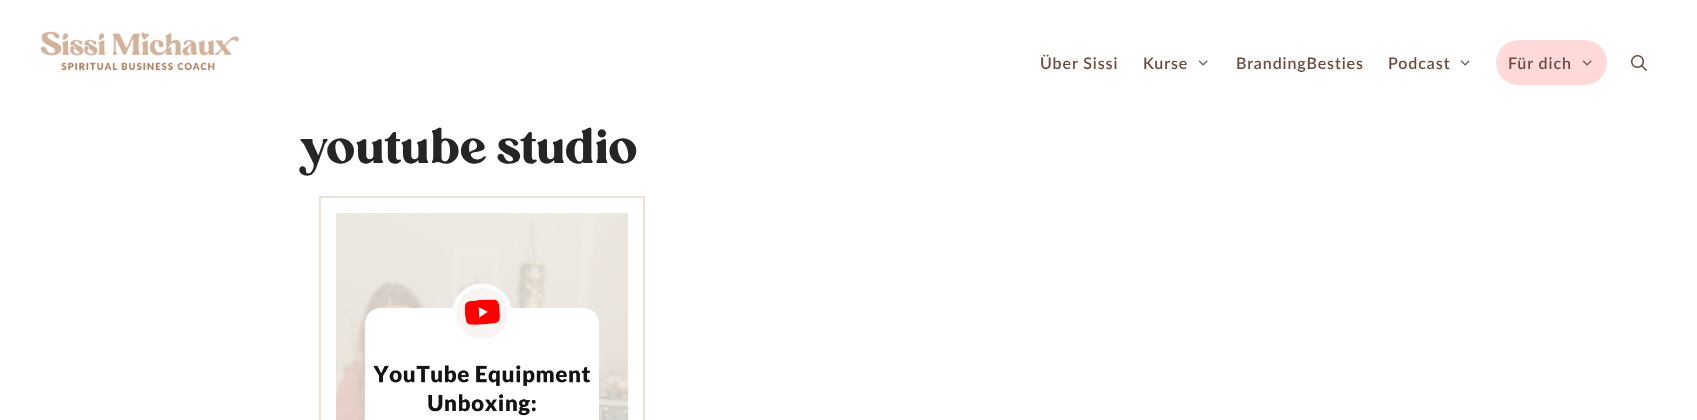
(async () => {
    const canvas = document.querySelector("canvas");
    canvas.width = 1697;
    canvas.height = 420;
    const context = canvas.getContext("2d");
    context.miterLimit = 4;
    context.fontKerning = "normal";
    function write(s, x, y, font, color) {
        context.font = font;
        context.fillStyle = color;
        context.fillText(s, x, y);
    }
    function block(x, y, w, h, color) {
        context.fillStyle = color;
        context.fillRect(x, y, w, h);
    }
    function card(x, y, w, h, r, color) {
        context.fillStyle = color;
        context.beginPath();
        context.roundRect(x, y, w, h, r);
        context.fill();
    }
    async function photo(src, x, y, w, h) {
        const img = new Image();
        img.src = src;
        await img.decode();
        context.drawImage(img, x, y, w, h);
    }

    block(0, 0, 1697, 420, "rgb(255, 255, 255)");
    await photo("media/1.png", 40, 31, 200, 40);
    context.letterSpacing = "0.9px";
    write("Über Sissi", 1040, 69, "600 16px Lato", "rgb(107, 74, 62)");
    write("Kurse", 1143, 69, "600 16px Lato", "rgb(107, 74, 62)");
    await photo("media/2.png", 1198, 60, 10, 6);
    write("BrandingBesties", 1236, 69, "600 16px Lato", "rgb(107, 74, 62)");
    write("Podcast", 1388, 69, "600 16px Lato", "rgb(107, 74, 62)");
    await photo("media/2.png", 1460, 60, 10, 6);
    card(1496, 40, 111, 45, 22.5, "rgb(255, 218, 217)");
    write("Für dich", 1508, 69, "600 16px Lato", "rgb(107, 74, 62)");
    await photo("media/3.png", 1582, 60, 10, 6);
    await photo("media/4.png", 1631, 55, 16, 16);
    context.letterSpacing = "0px";
    write("youtube studio", 299, 163, "48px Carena", "rgb(37, 37, 37)");
    context.strokeStyle = "rgb(237, 224, 212)";
    context.lineWidth = 2;
    context.strokeRect(320, 197, 324, 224);
    await photo("media/5.png", 336, 213, 292, 207);
})();
